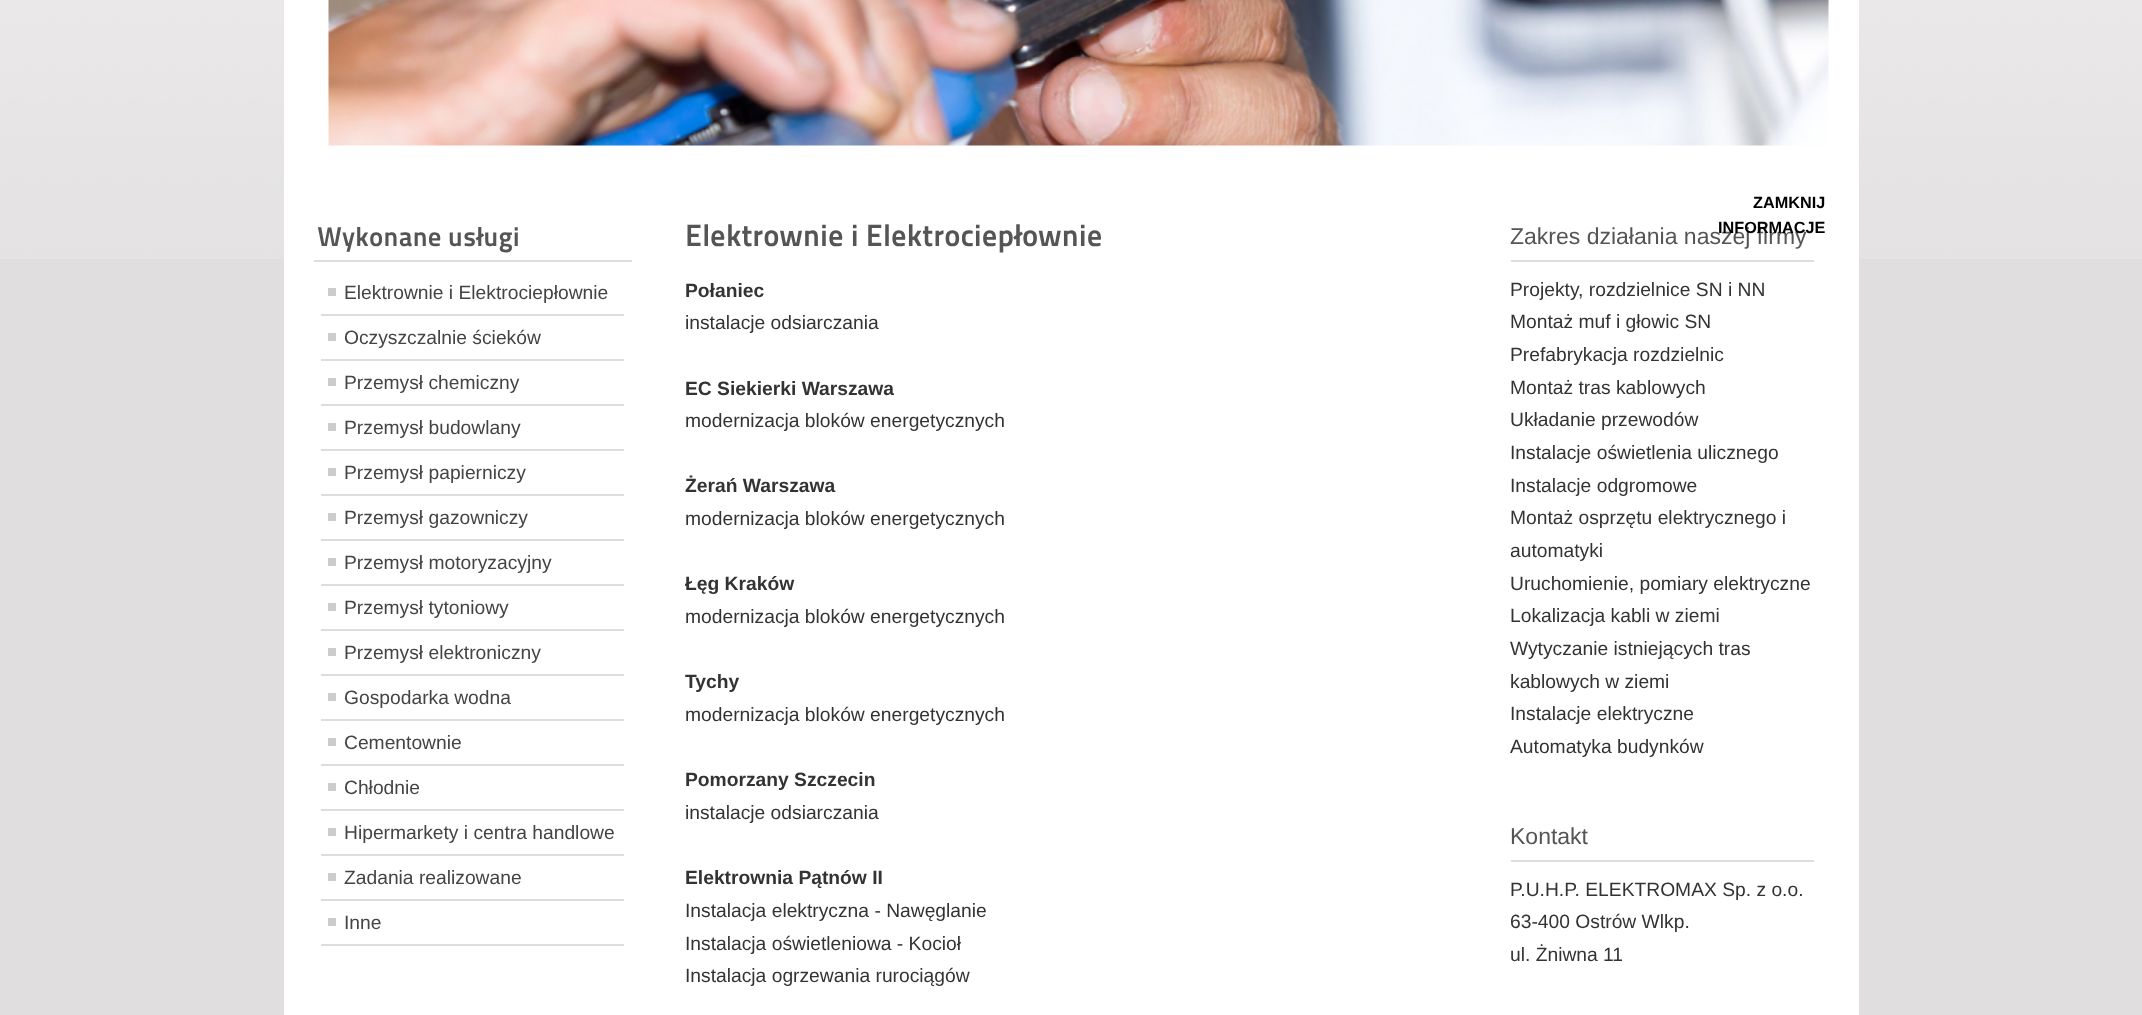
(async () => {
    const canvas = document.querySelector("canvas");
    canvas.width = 2142;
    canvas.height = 1015;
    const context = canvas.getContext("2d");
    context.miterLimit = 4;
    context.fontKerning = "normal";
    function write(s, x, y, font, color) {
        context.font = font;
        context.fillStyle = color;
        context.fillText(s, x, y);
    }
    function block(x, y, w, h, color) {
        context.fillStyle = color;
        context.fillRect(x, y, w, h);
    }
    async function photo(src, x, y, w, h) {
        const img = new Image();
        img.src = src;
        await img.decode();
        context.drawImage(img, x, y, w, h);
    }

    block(0, 0, 2142, 1015, "rgb(224, 222, 223)");
    await photo("media/1.png", 0, 0, 2142, 259);
    block(284, 0, 1575, 1015, "rgb(255, 255, 255)");
    await photo("media/2.png", 328, 0, 1501, 146);
    write("ZAMKNIJ", 1753, 208, "bold 16.25px Liberation Sans", "rgb(0, 0, 0)");
    write("Zakres działania naszej firmy", 1510, 244, "23px Liberation Sans", "rgb(85, 85, 85)");
    write("INFORMACJE", 1718, 233, "bold 16.25px Liberation Sans", "rgb(0, 0, 0)");
    block(314, 260, 318, 2, "rgb(221, 221, 221)");
    write("Wykonane usługi", 317, 246, "800 27px 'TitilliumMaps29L'", "rgb(85, 85, 85)");
    block(321, 314, 303, 2, "rgb(221, 221, 221)");
    block(328, 288, 8, 8, "rgb(204, 204, 204)");
    write("Elektrownie i Elektrociepłownie", 344, 299, "19.25px Liberation Sans", "rgb(68, 68, 68)");
    block(321, 359, 303, 2, "rgb(221, 221, 221)");
    block(328, 333, 8, 8, "rgb(204, 204, 204)");
    write("Oczyszczalnie ścieków", 344, 344, "19.25px Liberation Sans", "rgb(68, 68, 68)");
    block(321, 404, 303, 2, "rgb(221, 221, 221)");
    block(328, 378, 8, 8, "rgb(204, 204, 204)");
    write("Przemysł chemiczny", 344, 389, "19.25px Liberation Sans", "rgb(68, 68, 68)");
    block(321, 449, 303, 2, "rgb(221, 221, 221)");
    block(328, 423, 8, 8, "rgb(204, 204, 204)");
    write("Przemysł budowlany", 344, 434, "19.25px Liberation Sans", "rgb(68, 68, 68)");
    block(321, 494, 303, 2, "rgb(221, 221, 221)");
    block(328, 468, 8, 8, "rgb(204, 204, 204)");
    write("Przemysł papierniczy", 344, 479, "19.25px Liberation Sans", "rgb(68, 68, 68)");
    block(321, 539, 303, 2, "rgb(221, 221, 221)");
    block(328, 513, 8, 8, "rgb(204, 204, 204)");
    write("Przemysł gazowniczy", 344, 524, "19.25px Liberation Sans", "rgb(68, 68, 68)");
    block(321, 584, 303, 2, "rgb(221, 221, 221)");
    block(328, 558, 8, 8, "rgb(204, 204, 204)");
    write("Przemysł motoryzacyjny", 344, 569, "19.25px Liberation Sans", "rgb(68, 68, 68)");
    block(321, 629, 303, 2, "rgb(221, 221, 221)");
    block(328, 603, 8, 8, "rgb(204, 204, 204)");
    write("Przemysł tytoniowy", 344, 614, "19.25px Liberation Sans", "rgb(68, 68, 68)");
    block(321, 674, 303, 2, "rgb(221, 221, 221)");
    block(328, 648, 8, 8, "rgb(204, 204, 204)");
    write("Przemysł elektroniczny", 344, 659, "19.25px Liberation Sans", "rgb(68, 68, 68)");
    block(321, 719, 303, 2, "rgb(221, 221, 221)");
    block(328, 693, 8, 8, "rgb(204, 204, 204)");
    write("Gospodarka wodna", 344, 704, "19.25px Liberation Sans", "rgb(68, 68, 68)");
    block(321, 764, 303, 2, "rgb(221, 221, 221)");
    block(328, 738, 8, 8, "rgb(204, 204, 204)");
    write("Cementownie", 344, 749, "19.25px Liberation Sans", "rgb(68, 68, 68)");
    block(321, 809, 303, 2, "rgb(221, 221, 221)");
    block(328, 783, 8, 8, "rgb(204, 204, 204)");
    write("Chłodnie", 344, 794, "19.25px Liberation Sans", "rgb(68, 68, 68)");
    block(321, 854, 303, 2, "rgb(221, 221, 221)");
    block(328, 828, 8, 8, "rgb(204, 204, 204)");
    write("Hipermarkety i centra handlowe", 344, 839, "19.25px Liberation Sans", "rgb(68, 68, 68)");
    block(321, 899, 303, 2, "rgb(221, 221, 221)");
    block(328, 873, 8, 8, "rgb(204, 204, 204)");
    write("Zadania realizowane", 344, 884, "19.25px Liberation Sans", "rgb(68, 68, 68)");
    block(321, 944, 303, 2, "rgb(221, 221, 221)");
    block(328, 918, 8, 8, "rgb(204, 204, 204)");
    write("Inne", 344, 929, "19.25px Liberation Sans", "rgb(68, 68, 68)");
    write("Elektrownie i Elektrociepłownie", 685, 246, "800 30.75px 'TitilliumMaps29L'", "rgb(85, 85, 85)");
    write("Połaniec", 685, 297, "bold 19.25px Liberation Sans", "rgb(51, 51, 51)");
    write("instalacje odsiarczania", 685, 329, "19.25px Liberation Sans", "rgb(51, 51, 51)");
    write("EC Siekierki Warszawa", 685, 395, "bold 19.25px Liberation Sans", "rgb(51, 51, 51)");
    write("modernizacja bloków energetycznych", 685, 427, "19.25px Liberation Sans", "rgb(51, 51, 51)");
    write("Żerań Warszawa", 685, 492, "bold 19.25px Liberation Sans", "rgb(51, 51, 51)");
    write("modernizacja bloków energetycznych", 685, 525, "19.25px Liberation Sans", "rgb(51, 51, 51)");
    write("Łęg Kraków", 685, 590, "bold 19.25px Liberation Sans", "rgb(51, 51, 51)");
    write("modernizacja bloków energetycznych", 685, 623, "19.25px Liberation Sans", "rgb(51, 51, 51)");
    write("Tychy", 685, 688, "bold 19.25px Liberation Sans", "rgb(51, 51, 51)");
    write("modernizacja bloków energetycznych", 685, 721, "19.25px Liberation Sans", "rgb(51, 51, 51)");
    write("Pomorzany Szczecin", 685, 786, "bold 19.25px Liberation Sans", "rgb(51, 51, 51)");
    write("instalacje odsiarczania", 685, 819, "19.25px Liberation Sans", "rgb(51, 51, 51)");
    write("Elektrownia Pątnów II", 685, 884, "bold 19.25px Liberation Sans", "rgb(51, 51, 51)");
    write("Instalacja elektryczna - Nawęglanie", 685, 917, "19.25px Liberation Sans", "rgb(51, 51, 51)");
    write("Instalacja oświetleniowa - Kocioł", 685, 950, "19.25px Liberation Sans", "rgb(51, 51, 51)");
    write("Instalacja ogrzewania rurociągów", 685, 982, "19.25px Liberation Sans", "rgb(51, 51, 51)");
    block(1511, 260, 303, 2, "rgb(221, 221, 221)");
    write("Projekty, rozdzielnice SN i NN", 1510, 296, "19.25px Liberation Sans", "rgb(51, 51, 51)");
    write("Montaż muf i głowic SN", 1510, 328, "19.25px Liberation Sans", "rgb(51, 51, 51)");
    write("Prefabrykacja rozdzielnic", 1510, 361, "19.25px Liberation Sans", "rgb(51, 51, 51)");
    write("Montaż tras kablowych", 1510, 394, "19.25px Liberation Sans", "rgb(51, 51, 51)");
    write("Układanie przewodów", 1510, 426, "19.25px Liberation Sans", "rgb(51, 51, 51)");
    write("Instalacje oświetlenia ulicznego", 1510, 459, "19.25px Liberation Sans", "rgb(51, 51, 51)");
    write("Instalacje odgromowe", 1510, 492, "19.25px Liberation Sans", "rgb(51, 51, 51)");
    write("Montaż osprzętu elektrycznego i", 1510, 524, "19.25px Liberation Sans", "rgb(51, 51, 51)");
    write("automatyki", 1510, 557, "19.25px Liberation Sans", "rgb(51, 51, 51)");
    write("Uruchomienie, pomiary elektryczne", 1510, 590, "19.25px Liberation Sans", "rgb(51, 51, 51)");
    write("Lokalizacja kabli w ziemi", 1510, 622, "19.25px Liberation Sans", "rgb(51, 51, 51)");
    write("Wytyczanie istniejących tras", 1510, 655, "19.25px Liberation Sans", "rgb(51, 51, 51)");
    write("kablowych w ziemi", 1510, 688, "19.25px Liberation Sans", "rgb(51, 51, 51)");
    write("Instalacje elektryczne", 1510, 720, "19.25px Liberation Sans", "rgb(51, 51, 51)");
    write("Automatyka budynków", 1510, 753, "19.25px Liberation Sans", "rgb(51, 51, 51)");
    block(1511, 860, 303, 2, "rgb(221, 221, 221)");
    write("Kontakt", 1510, 844, "23px Liberation Sans", "rgb(85, 85, 85)");
    write("P.U.H.P. ELEKTROMAX Sp. z o.o.", 1510, 896, "19.25px Liberation Sans", "rgb(51, 51, 51)");
    write("63-400 Ostrów Wlkp.", 1510, 928, "19.25px Liberation Sans", "rgb(51, 51, 51)");
    write("ul. Żniwna 11", 1510, 961, "19.25px Liberation Sans", "rgb(51, 51, 51)");
})();
